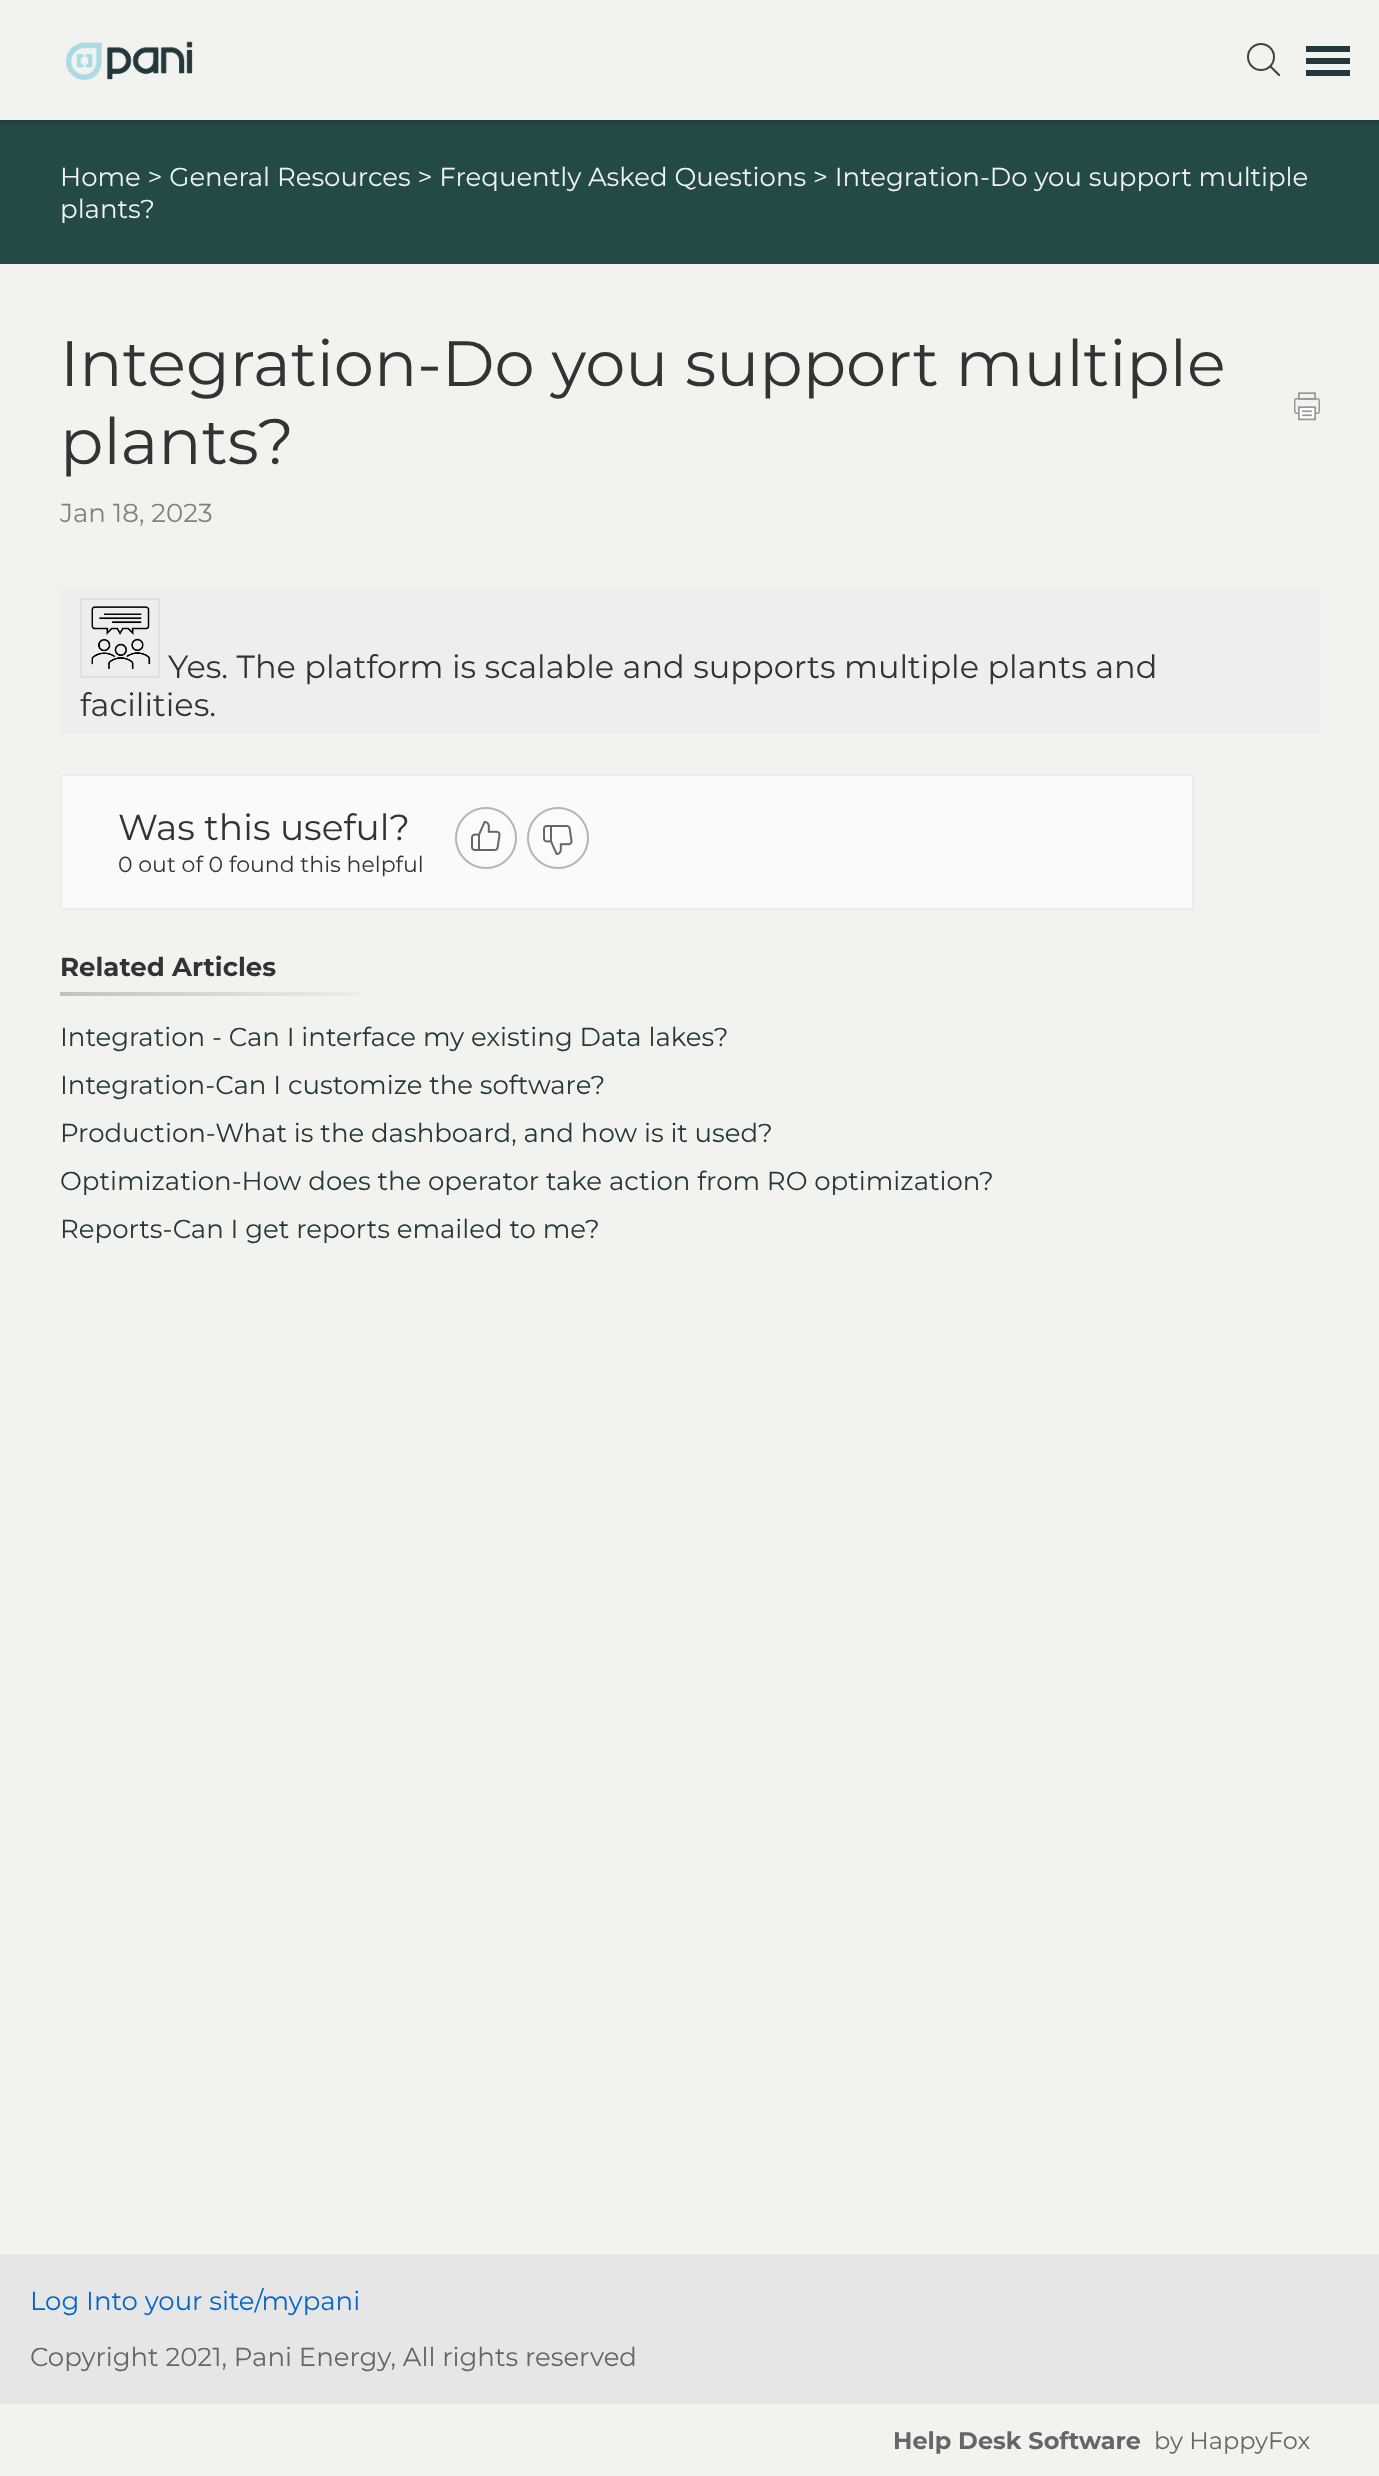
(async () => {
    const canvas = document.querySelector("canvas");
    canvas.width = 1379;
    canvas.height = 2476;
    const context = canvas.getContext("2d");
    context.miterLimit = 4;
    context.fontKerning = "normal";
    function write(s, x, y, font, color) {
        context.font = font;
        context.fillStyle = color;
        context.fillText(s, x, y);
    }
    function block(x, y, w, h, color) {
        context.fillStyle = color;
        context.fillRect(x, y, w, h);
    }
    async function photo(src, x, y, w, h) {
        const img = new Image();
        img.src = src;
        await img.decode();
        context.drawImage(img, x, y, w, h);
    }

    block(0, 0, 1379, 2476, "rgb(242, 242, 239)");
    block(0, 120, 1379, 144, "rgb(36, 74, 72)");
    context.save();
    context.beginPath();
    context.rect(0, 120, 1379, 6);
    context.clip();
    context.fillStyle = "rgba(0, 0, 0, 0.2)";
    context.filter = "blur(3px)";
    context.beginPath();
    context.rect(0, 2, 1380, 120);
    context.fill();
    context.filter = "none";
    context.restore();
    await photo("media/1.png", 65, 41, 128, 40);
    context.beginPath();
    context.arc(1261, 57, 13, 0, Math.PI * 2);
    context.strokeStyle = "rgb(66, 66, 66)";
    context.lineWidth = 2;
    context.stroke();
    context.save();
    context.beginPath();
    context.rect(1246, 42, 34, 34);
    context.clip();
    context.beginPath();
    context.moveTo(1271, 67);
    context.lineTo(1279, 75);
    context.lineCap = "square";
    context.stroke();
    context.restore();
    block(1306, 46, 44, 6, "rgb(35, 56, 58)");
    block(1306, 58, 44, 6, "rgb(35, 56, 58)");
    block(1306, 70, 44, 6, "rgb(35, 56, 58)");
    write("Home > General Resources > Frequently Asked Questions > Integration-Do you support multiple", 60, 186, "26px Montserrat", "rgb(242, 242, 239)");
    write("plants?", 60, 218, "26px Montserrat", "rgb(242, 242, 239)");
    write("Integration-Do you support multiple", 60, 386, "64px Montserrat", "rgb(51, 51, 51)");
    write("plants?", 60, 464, "64px Montserrat", "rgb(51, 51, 51)");
    await photo("media/2.png", 1294, 392, 26, 29);
    write("Jan 18, 2023", 60, 522, "26px Montserrat", "rgb(128, 128, 128)");
    block(60, 588, 1260, 146, "rgb(238, 238, 238)");
    context.strokeStyle = "rgb(222, 226, 228)";
    context.strokeRect(81, 599, 78, 78);
    await photo("media/3.png", 91, 606, 60, 63);
    write("Yes. The platform is scalable and supports multiple plants and", 168, 678, "32px Montserrat", "rgb(51, 51, 51)");
    write("facilities.", 80, 716, "32px Montserrat", "rgb(51, 51, 51)");
    context.fillStyle = "rgb(250, 250, 250)";
    context.beginPath();
    context.roundRect(61, 775, 1132, 134, 3);
    context.fill();
    context.strokeStyle = "rgb(236, 236, 236)";
    context.stroke();
    write("Was this useful?", 118, 840, "36px Montserrat", "rgb(51, 51, 51)");
    write("0 out of 0 found this helpful", 118, 872, "22px Montserrat", "rgb(51, 51, 51)");
    await photo("media/4.png", 455, 807, 62, 62);
    await photo("media/5.png", 527, 807, 62, 62);
    await photo("media/6.png", 60, 992, 300, 4);
    write("Related Articles", 60, 976, "bold 26px Montserrat", "rgb(51, 51, 51)");
    write("Integration - Can I interface my existing Data lakes?", 60, 1046, "26px Montserrat", "rgb(35, 56, 58)");
    write("Integration-Can I customize the software?", 60, 1094, "26px Montserrat", "rgb(35, 56, 58)");
    write("Production-What is the dashboard, and how is it used?", 60, 1142, "26px Montserrat", "rgb(35, 56, 58)");
    write("Optimization-How does the operator take action from RO optimization?", 60, 1190, "26px Montserrat", "rgb(35, 56, 58)");
    write("Reports-Can I get reports emailed to me?", 60, 1238, "26px Montserrat", "rgb(35, 56, 58)");
    block(0, 2254, 1379, 150, "rgb(230, 230, 230)");
    write("Log Into your site/mypani", 30, 2310, "26px Montserrat", "rgb(0, 102, 204)");
    write("Copyright 2021, Pani Energy, All rights reserved", 30, 2366, "26px Montserrat", "rgb(102, 102, 102)");
    write("Help Desk Software", 893, 2449, "bold 24px Montserrat", "rgb(102, 102, 102)");
    write("by HappyFox", 1154, 2449, "24px Montserrat", "rgb(102, 102, 102)");
})();
